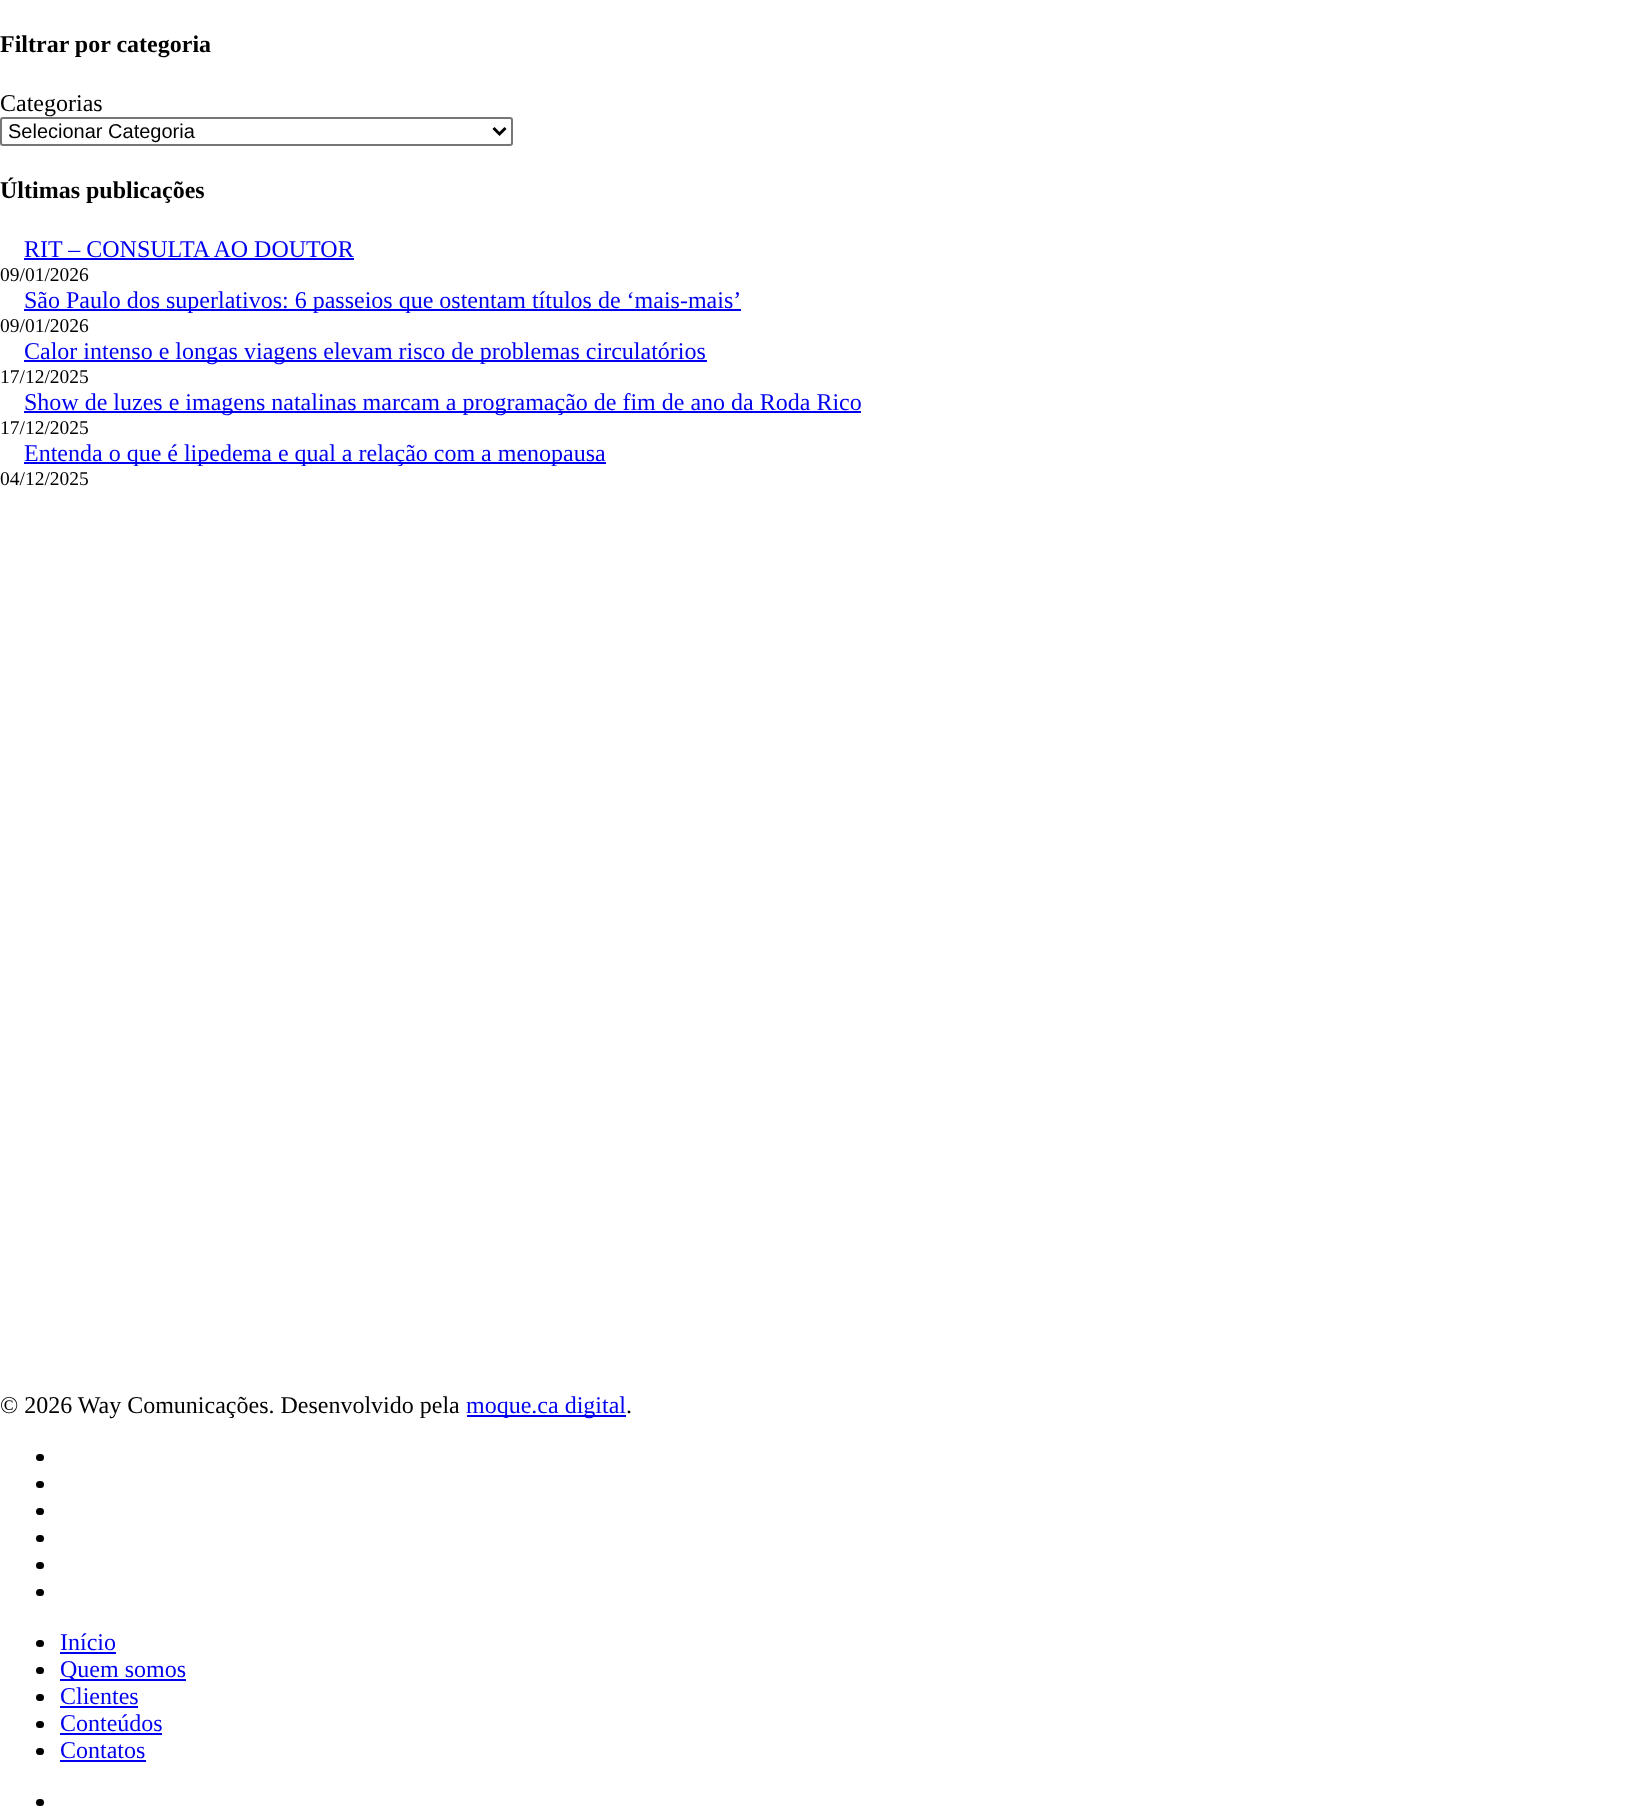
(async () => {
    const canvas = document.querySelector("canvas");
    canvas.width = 1648;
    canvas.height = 1815;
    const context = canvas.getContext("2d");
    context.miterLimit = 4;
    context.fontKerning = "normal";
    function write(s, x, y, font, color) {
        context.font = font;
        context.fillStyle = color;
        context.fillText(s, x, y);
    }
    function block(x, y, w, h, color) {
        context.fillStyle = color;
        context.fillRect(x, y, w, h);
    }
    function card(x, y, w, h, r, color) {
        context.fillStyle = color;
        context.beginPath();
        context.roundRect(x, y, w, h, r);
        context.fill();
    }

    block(0, 0, 1648, 1815, "rgb(255, 255, 255)");
    write("Filtrar por categoria", 0, 52, "bold 24px Liberation Serif", "rgb(0, 0, 0)");
    write("Categorias", 0, 111, "24px Liberation Serif", "rgb(0, 0, 0)");
    context.beginPath();
    context.roundRect(1, 118, 511, 27, 2);
    context.strokeStyle = "rgb(118, 118, 118)";
    context.lineWidth = 2;
    context.stroke();
    context.beginPath();
    context.moveTo(493.5, 128);
    context.lineTo(499.5, 134);
    context.lineTo(505.5, 128);
    context.strokeStyle = "rgb(0, 0, 0)";
    context.lineWidth = 3;
    context.stroke();
    write("Selecionar Categoria", 8, 138, "20px Liberation Sans", "rgb(0, 0, 0)");
    write("Últimas publicações", 0, 198, "bold 24px Liberation Serif", "rgb(0, 0, 0)");
    write("RIT – CONSULTA AO DOUTOR", 24, 257, "24px Liberation Serif", "rgb(0, 0, 238)");
    block(24, 258, 330, 2, "rgb(0, 0, 238)");
    write("09/01/2026", 0, 281, "19.5px Liberation Serif", "rgb(0, 0, 0)");
    block(24, 309, 717, 2, "rgb(0, 0, 238)");
    write("São Paulo dos superlativos: 6 passeios que ostentam títulos de ‘mais-mais’", 24, 308, "24px Liberation Serif", "rgb(0, 0, 238)");
    write("09/01/2026", 0, 332, "19.5px Liberation Serif", "rgb(0, 0, 0)");
    block(24, 360, 683, 2, "rgb(0, 0, 238)");
    write("Calor intenso e longas viagens elevam risco de problemas circulatórios", 24, 359, "24px Liberation Serif", "rgb(0, 0, 238)");
    write("17/12/2025", 0, 383, "19.5px Liberation Serif", "rgb(0, 0, 0)");
    block(24, 411, 837, 2, "rgb(0, 0, 238)");
    write("Show de luzes e imagens natalinas marcam a programação de fim de ano da Roda Rico", 24, 410, "24px Liberation Serif", "rgb(0, 0, 238)");
    write("17/12/2025", 0, 434, "19.5px Liberation Serif", "rgb(0, 0, 0)");
    block(24, 462, 582, 2, "rgb(0, 0, 238)");
    write("Entenda o que é lipedema e qual a relação com a menopausa", 24, 461, "24px Liberation Serif", "rgb(0, 0, 238)");
    write("04/12/2025", 0, 485, "19.5px Liberation Serif", "rgb(0, 0, 0)");
    write("© 2026 Way Comunicações. Desenvolvido pela", 0, 1413, "24px Liberation Serif", "rgb(0, 0, 0)");
    block(467, 1415, 159, 2, "rgb(0, 0, 238)");
    write("moque.ca digital", 466, 1413, "24px Liberation Serif", "rgb(0, 0, 238)");
    write(".", 626, 1413, "24px Liberation Serif", "rgb(0, 0, 0)");
    card(36, 1454, 8, 7, 3.5, "rgb(0, 0, 0)");
    card(36, 1481, 8, 7, 3.5, "rgb(0, 0, 0)");
    card(36, 1508, 8, 7, 3.5, "rgb(0, 0, 0)");
    card(36, 1535, 8, 7, 3.5, "rgb(0, 0, 0)");
    card(36, 1562, 8, 7, 3.5, "rgb(0, 0, 0)");
    card(36, 1589, 8, 7, 3.5, "rgb(0, 0, 0)");
    card(36, 1640, 8, 7, 3.5, "rgb(0, 0, 0)");
    write("Início", 60, 1650, "24px Liberation Serif", "rgb(0, 0, 238)");
    block(60, 1652, 56, 2, "rgb(0, 0, 238)");
    card(36, 1667, 8, 7, 3.5, "rgb(0, 0, 0)");
    block(60, 1679, 126, 2, "rgb(0, 0, 238)");
    write("Quem somos", 60, 1677, "24px Liberation Serif", "rgb(0, 0, 238)");
    card(36, 1694, 8, 7, 3.5, "rgb(0, 0, 0)");
    write("Clientes", 60, 1704, "24px Liberation Serif", "rgb(0, 0, 238)");
    block(60, 1706, 78, 2, "rgb(0, 0, 238)");
    card(36, 1721, 8, 7, 3.5, "rgb(0, 0, 0)");
    write("Conteúdos", 60, 1731, "24px Liberation Serif", "rgb(0, 0, 238)");
    block(60, 1733, 102, 2, "rgb(0, 0, 238)");
    card(36, 1748, 8, 7, 3.5, "rgb(0, 0, 0)");
    write("Contatos", 60, 1758, "24px Liberation Serif", "rgb(0, 0, 238)");
    block(60, 1760, 86, 2, "rgb(0, 0, 238)");
    card(36, 1799, 8, 7, 3.5, "rgb(0, 0, 0)");
})();
